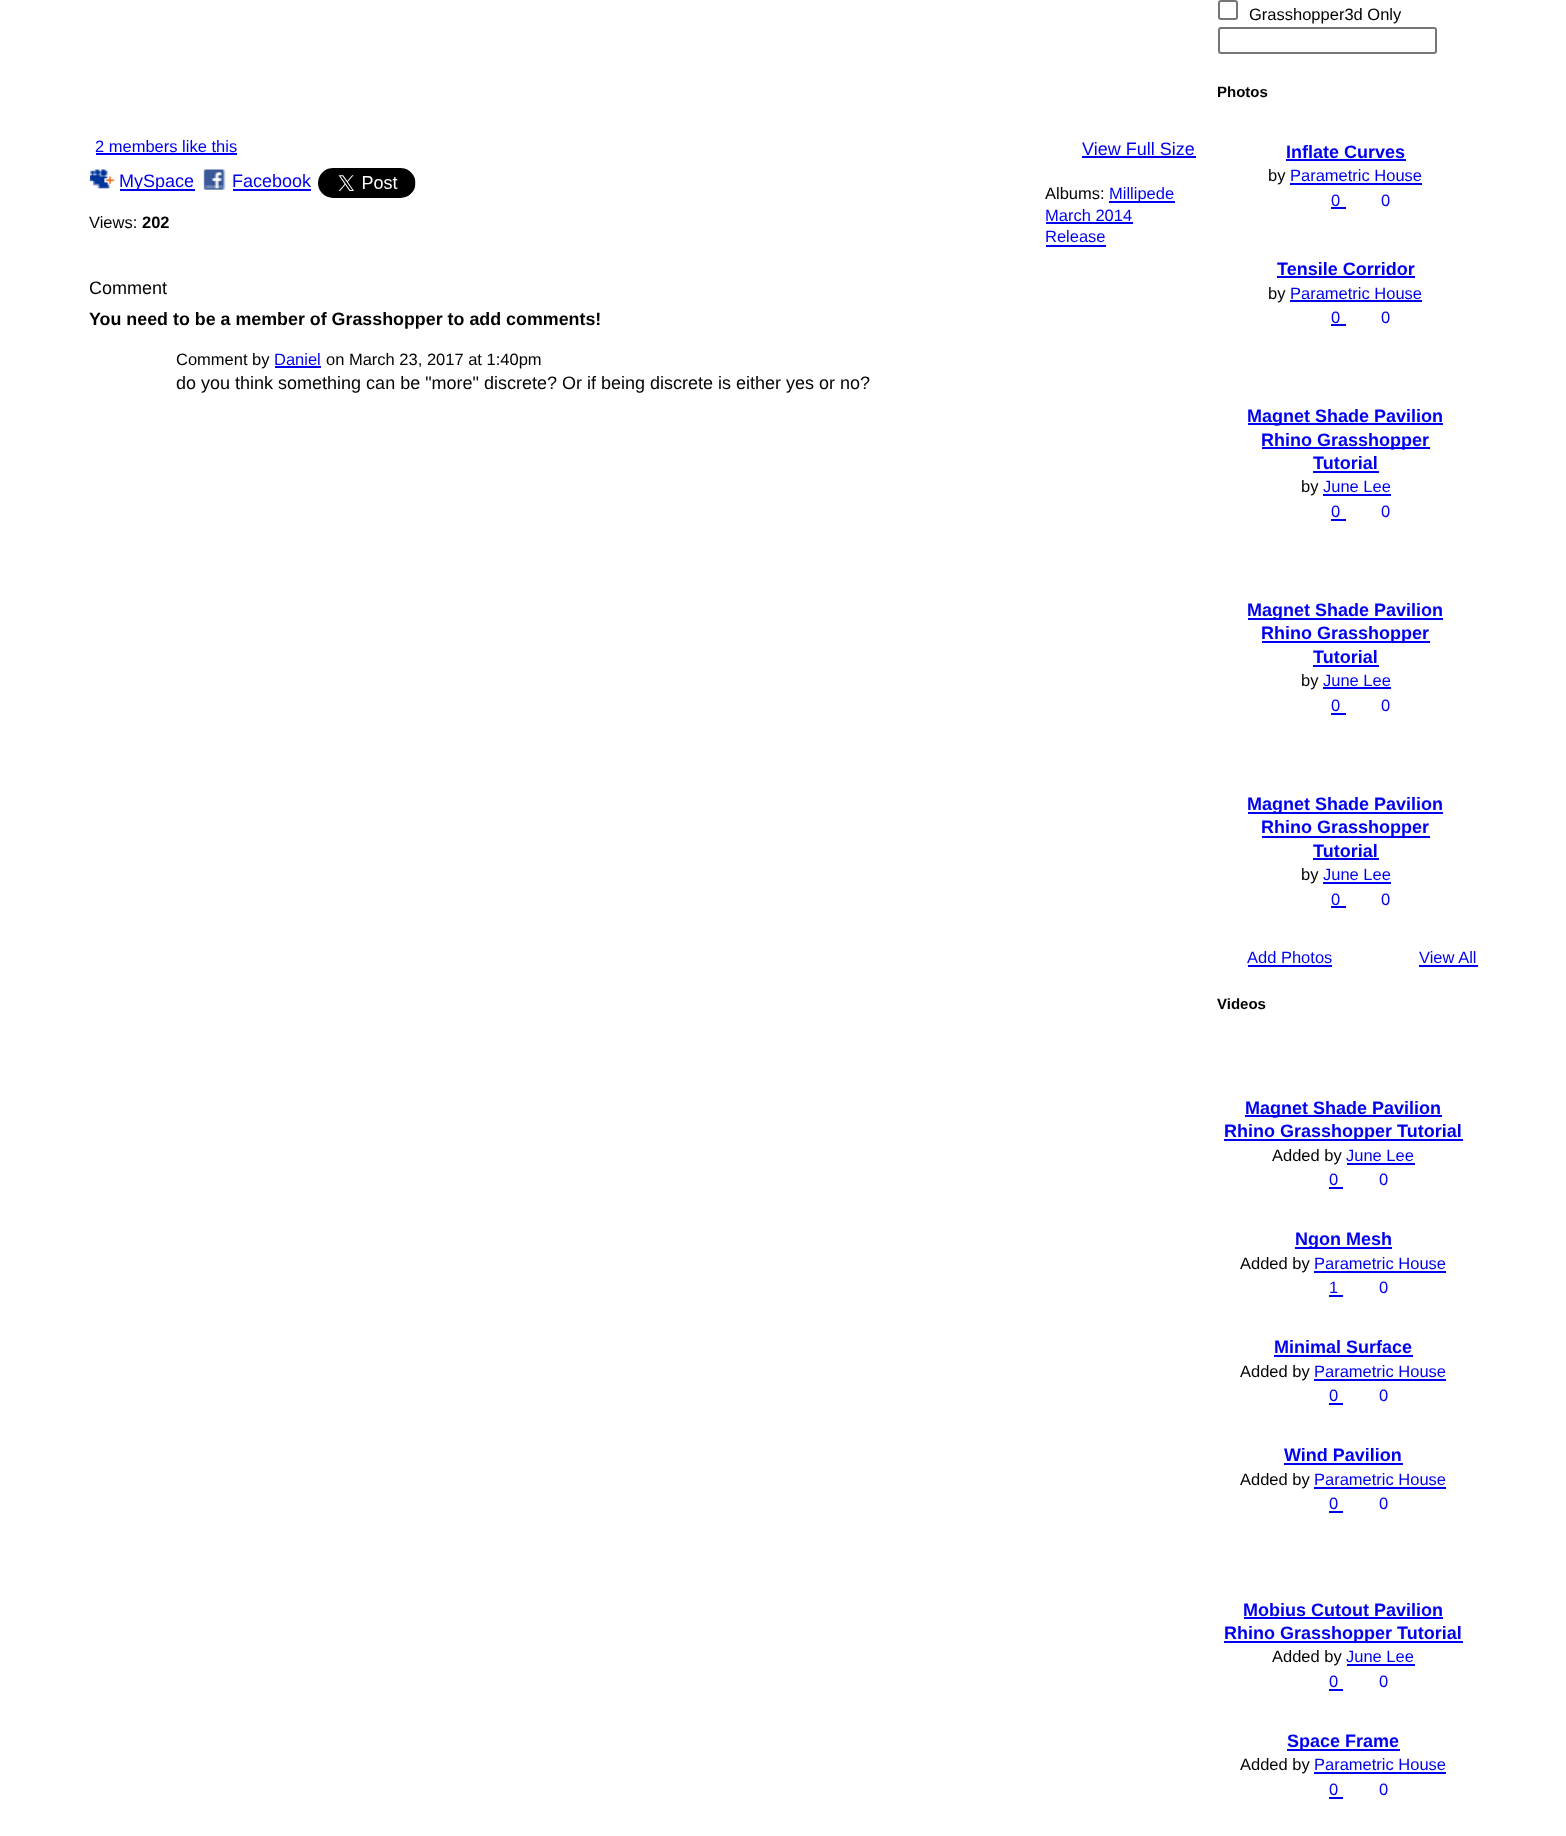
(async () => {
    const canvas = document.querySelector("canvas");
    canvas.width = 1566;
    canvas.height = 1836;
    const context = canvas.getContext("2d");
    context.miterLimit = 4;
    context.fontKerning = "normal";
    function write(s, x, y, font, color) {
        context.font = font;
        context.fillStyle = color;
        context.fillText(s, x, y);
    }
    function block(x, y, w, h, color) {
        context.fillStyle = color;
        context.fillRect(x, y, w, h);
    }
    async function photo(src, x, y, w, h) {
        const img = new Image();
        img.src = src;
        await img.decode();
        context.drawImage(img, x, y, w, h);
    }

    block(0, 0, 1566, 1836, "rgb(255, 255, 255)");
    write("2 members like this", 95, 152, "16.5px Liberation Sans", "rgb(0, 0, 238)");
    block(96, 153, 141, 2, "rgb(0, 0, 238)");
    await photo("media/1.png", 90, 169, 25, 20);
    block(120, 189, 75, 2, "rgb(0, 0, 238)");
    write("MySpace", 119, 187, "18px Liberation Sans", "rgb(0, 0, 238)");
    await photo("media/2.png", 203, 169, 23, 21);
    write("Facebook", 232, 187, "18px Liberation Sans", "rgb(0, 0, 238)");
    block(233, 189, 78, 2, "rgb(0, 0, 238)");
    await photo("media/3.png", 318, 168, 98, 30);
    write("Views:", 89, 228, "16.5px Liberation Sans", "rgb(0, 0, 0)");
    write("202", 142, 228, "bold 16.5px Liberation Sans", "rgb(0, 0, 0)");
    write("View Full Size", 1082, 155, "18px Liberation Sans", "rgb(0, 0, 238)");
    block(1082, 156, 114, 2, "rgb(0, 0, 238)");
    write("Albums:", 1045, 199, "16.5px Liberation Sans", "rgb(0, 0, 0)");
    block(1109, 201, 66, 2, "rgb(0, 0, 238)");
    write("Millipede", 1109, 199, "16.5px Liberation Sans", "rgb(0, 0, 238)");
    write("March 2014", 1045, 221, "16.5px Liberation Sans", "rgb(0, 0, 238)");
    block(1046, 222, 87, 2, "rgb(0, 0, 238)");
    write("Release", 1045, 242, "16.5px Liberation Sans", "rgb(0, 0, 238)");
    block(1046, 245, 60, 2, "rgb(0, 0, 238)");
    write("Comment", 89, 294, "18px Liberation Sans", "rgb(0, 0, 0)");
    write("You need to be a member of Grasshopper to add comments!", 89, 325, "bold 17.85px Liberation Sans", "rgb(0, 0, 0)");
    write("Comment by", 176, 365, "16.5px Liberation Sans", "rgb(0, 0, 0)");
    write("Daniel", 274, 365, "16.5px Liberation Sans", "rgb(0, 0, 238)");
    block(275, 366, 46, 2, "rgb(0, 0, 238)");
    write("on March 23, 2017 at 1:40pm", 326, 365, "16.5px Liberation Sans", "rgb(0, 0, 0)");
    write("do you think something can be \"more\" discrete? Or if being discrete is either yes or no?", 176, 389, "18px Liberation Sans", "rgb(0, 0, 0)");
    context.beginPath();
    context.roundRect(1219, 1, 18, 18, 2);
    context.strokeStyle = "rgb(118, 118, 118)";
    context.lineWidth = 2;
    context.stroke();
    write("Grasshopper3d Only", 1249, 20, "16.5px Liberation Sans", "rgb(0, 0, 0)");
    context.beginPath();
    context.roundRect(1219, 28, 217, 25, 2);
    context.stroke();
    write("Photos", 1217, 97, "bold 15px Liberation Sans", "rgb(0, 0, 0)");
    write("Inflate Curves", 1286, 158, "bold 18px Liberation Sans", "rgb(0, 0, 238)");
    block(1286, 159, 120, 2, "rgb(0, 0, 238)");
    write("by", 1268, 181, "16.5px Liberation Sans", "rgb(0, 0, 0)");
    write("Parametric House", 1290, 181, "16.5px Liberation Sans", "rgb(0, 0, 238)");
    block(1290, 183, 132, 2, "rgb(0, 0, 238)");
    write("0", 1331, 206, "16.5px Liberation Sans", "rgb(0, 0, 238)");
    block(1331, 207, 15, 2, "rgb(0, 0, 238)");
    write("0", 1381, 206, "16.5px Liberation Sans", "rgb(0, 0, 238)");
    write("Tensile Corridor", 1277, 275, "bold 18px Liberation Sans", "rgb(0, 0, 238)");
    block(1277, 276, 138, 2, "rgb(0, 0, 238)");
    write("by", 1268, 299, "16.5px Liberation Sans", "rgb(0, 0, 0)");
    write("Parametric House", 1290, 299, "16.5px Liberation Sans", "rgb(0, 0, 238)");
    block(1290, 300, 132, 2, "rgb(0, 0, 238)");
    write("0", 1331, 323, "16.5px Liberation Sans", "rgb(0, 0, 238)");
    block(1331, 324, 15, 2, "rgb(0, 0, 238)");
    write("0", 1381, 323, "16.5px Liberation Sans", "rgb(0, 0, 238)");
    block(1248, 423, 195, 2, "rgb(0, 0, 238)");
    write("Magnet Shade Pavilion", 1247, 422, "bold 18px Liberation Sans", "rgb(0, 0, 238)");
    block(1262, 447, 168, 2, "rgb(0, 0, 238)");
    write("Rhino Grasshopper", 1261, 446, "bold 18px Liberation Sans", "rgb(0, 0, 238)");
    write("Tutorial", 1313, 469, "bold 18px Liberation Sans", "rgb(0, 0, 238)");
    block(1313, 471, 66, 2, "rgb(0, 0, 238)");
    write("by", 1301, 492, "16.5px Liberation Sans", "rgb(0, 0, 0)");
    write("June Lee", 1323, 492, "16.5px Liberation Sans", "rgb(0, 0, 238)");
    block(1323, 494, 68, 2, "rgb(0, 0, 238)");
    write("0", 1331, 517, "16.5px Liberation Sans", "rgb(0, 0, 238)");
    block(1331, 519, 15, 2, "rgb(0, 0, 238)");
    write("0", 1381, 517, "16.5px Liberation Sans", "rgb(0, 0, 238)");
    block(1248, 618, 195, 2, "rgb(0, 0, 238)");
    write("Magnet Shade Pavilion", 1247, 616, "bold 18px Liberation Sans", "rgb(0, 0, 238)");
    block(1262, 641, 168, 2, "rgb(0, 0, 238)");
    write("Rhino Grasshopper", 1261, 639, "bold 18px Liberation Sans", "rgb(0, 0, 238)");
    write("Tutorial", 1313, 663, "bold 18px Liberation Sans", "rgb(0, 0, 238)");
    block(1313, 665, 66, 2, "rgb(0, 0, 238)");
    write("by", 1301, 686, "16.5px Liberation Sans", "rgb(0, 0, 0)");
    write("June Lee", 1323, 686, "16.5px Liberation Sans", "rgb(0, 0, 238)");
    block(1323, 687, 68, 2, "rgb(0, 0, 238)");
    write("0", 1331, 711, "16.5px Liberation Sans", "rgb(0, 0, 238)");
    block(1331, 713, 15, 2, "rgb(0, 0, 238)");
    write("0", 1381, 711, "16.5px Liberation Sans", "rgb(0, 0, 238)");
    block(1248, 812, 195, 2, "rgb(0, 0, 238)");
    write("Magnet Shade Pavilion", 1247, 810, "bold 18px Liberation Sans", "rgb(0, 0, 238)");
    block(1262, 836, 168, 2, "rgb(0, 0, 238)");
    write("Rhino Grasshopper", 1261, 833, "bold 18px Liberation Sans", "rgb(0, 0, 238)");
    write("Tutorial", 1313, 857, "bold 18px Liberation Sans", "rgb(0, 0, 238)");
    block(1313, 858, 66, 2, "rgb(0, 0, 238)");
    write("by", 1301, 880, "16.5px Liberation Sans", "rgb(0, 0, 0)");
    write("June Lee", 1323, 880, "16.5px Liberation Sans", "rgb(0, 0, 238)");
    block(1323, 882, 68, 2, "rgb(0, 0, 238)");
    write("0", 1331, 905, "16.5px Liberation Sans", "rgb(0, 0, 238)");
    block(1331, 906, 15, 2, "rgb(0, 0, 238)");
    write("0", 1381, 905, "16.5px Liberation Sans", "rgb(0, 0, 238)");
    write("Add Photos", 1247, 963, "16.5px Liberation Sans", "rgb(0, 0, 238)");
    block(1248, 965, 84, 2, "rgb(0, 0, 238)");
    write("View All", 1419, 963, "16.5px Liberation Sans", "rgb(0, 0, 238)");
    block(1419, 965, 59, 2, "rgb(0, 0, 238)");
    write("Videos", 1217, 1009, "bold 15px Liberation Sans", "rgb(0, 0, 0)");
    block(1245, 1115, 197, 2, "rgb(0, 0, 238)");
    write("Magnet Shade Pavilion", 1245, 1114, "bold 18px Liberation Sans", "rgb(0, 0, 238)");
    block(1224, 1139, 239, 2, "rgb(0, 0, 238)");
    write("Rhino Grasshopper Tutorial", 1224, 1137, "bold 18px Liberation Sans", "rgb(0, 0, 238)");
    write("Added by", 1272, 1161, "16.5px Liberation Sans", "rgb(0, 0, 0)");
    write("June Lee", 1346, 1161, "16.5px Liberation Sans", "rgb(0, 0, 238)");
    block(1347, 1163, 68, 2, "rgb(0, 0, 238)");
    write("0", 1329, 1185, "16.5px Liberation Sans", "rgb(0, 0, 238)");
    block(1329, 1187, 14, 2, "rgb(0, 0, 238)");
    write("0", 1379, 1185, "16.5px Liberation Sans", "rgb(0, 0, 238)");
    block(1295, 1247, 97, 2, "rgb(0, 0, 238)");
    write("Ngon Mesh", 1295, 1245, "bold 18px Liberation Sans", "rgb(0, 0, 238)");
    write("Added by", 1240, 1269, "16.5px Liberation Sans", "rgb(0, 0, 0)");
    write("Parametric House", 1314, 1269, "16.5px Liberation Sans", "rgb(0, 0, 238)");
    block(1314, 1271, 132, 2, "rgb(0, 0, 238)");
    write("1", 1329, 1293, "16.5px Liberation Sans", "rgb(0, 0, 238)");
    block(1329, 1295, 14, 2, "rgb(0, 0, 238)");
    write("0", 1379, 1293, "16.5px Liberation Sans", "rgb(0, 0, 238)");
    write("Minimal Surface", 1274, 1353, "bold 18px Liberation Sans", "rgb(0, 0, 238)");
    block(1274, 1355, 139, 2, "rgb(0, 0, 238)");
    write("Added by", 1240, 1377, "16.5px Liberation Sans", "rgb(0, 0, 0)");
    write("Parametric House", 1314, 1377, "16.5px Liberation Sans", "rgb(0, 0, 238)");
    block(1314, 1379, 132, 2, "rgb(0, 0, 238)");
    write("0", 1329, 1401, "16.5px Liberation Sans", "rgb(0, 0, 238)");
    block(1329, 1403, 14, 2, "rgb(0, 0, 238)");
    write("0", 1379, 1401, "16.5px Liberation Sans", "rgb(0, 0, 238)");
    write("Wind Pavilion", 1284, 1461, "bold 18px Liberation Sans", "rgb(0, 0, 238)");
    block(1284, 1463, 119, 2, "rgb(0, 0, 238)");
    write("Added by", 1240, 1485, "16.5px Liberation Sans", "rgb(0, 0, 0)");
    write("Parametric House", 1314, 1485, "16.5px Liberation Sans", "rgb(0, 0, 238)");
    block(1314, 1487, 132, 2, "rgb(0, 0, 238)");
    write("0", 1329, 1509, "16.5px Liberation Sans", "rgb(0, 0, 238)");
    block(1329, 1511, 14, 2, "rgb(0, 0, 238)");
    write("0", 1379, 1509, "16.5px Liberation Sans", "rgb(0, 0, 238)");
    write("Mobius Cutout Pavilion", 1243, 1616, "bold 18px Liberation Sans", "rgb(0, 0, 238)");
    block(1244, 1617, 199, 2, "rgb(0, 0, 238)");
    block(1224, 1641, 239, 2, "rgb(0, 0, 238)");
    write("Rhino Grasshopper Tutorial", 1224, 1639, "bold 18px Liberation Sans", "rgb(0, 0, 238)");
    write("Added by", 1272, 1662, "16.5px Liberation Sans", "rgb(0, 0, 0)");
    write("June Lee", 1346, 1662, "16.5px Liberation Sans", "rgb(0, 0, 238)");
    block(1347, 1664, 68, 2, "rgb(0, 0, 238)");
    write("0", 1329, 1687, "16.5px Liberation Sans", "rgb(0, 0, 238)");
    block(1329, 1689, 14, 2, "rgb(0, 0, 238)");
    write("0", 1379, 1687, "16.5px Liberation Sans", "rgb(0, 0, 238)");
    block(1287, 1749, 113, 2, "rgb(0, 0, 238)");
    write("Space Frame", 1287, 1747, "bold 18px Liberation Sans", "rgb(0, 0, 238)");
    write("Added by", 1240, 1770, "16.5px Liberation Sans", "rgb(0, 0, 0)");
    write("Parametric House", 1314, 1770, "16.5px Liberation Sans", "rgb(0, 0, 238)");
    block(1314, 1772, 132, 2, "rgb(0, 0, 238)");
    write("0", 1329, 1795, "16.5px Liberation Sans", "rgb(0, 0, 238)");
    block(1329, 1797, 14, 2, "rgb(0, 0, 238)");
    write("0", 1379, 1795, "16.5px Liberation Sans", "rgb(0, 0, 238)");
})();
